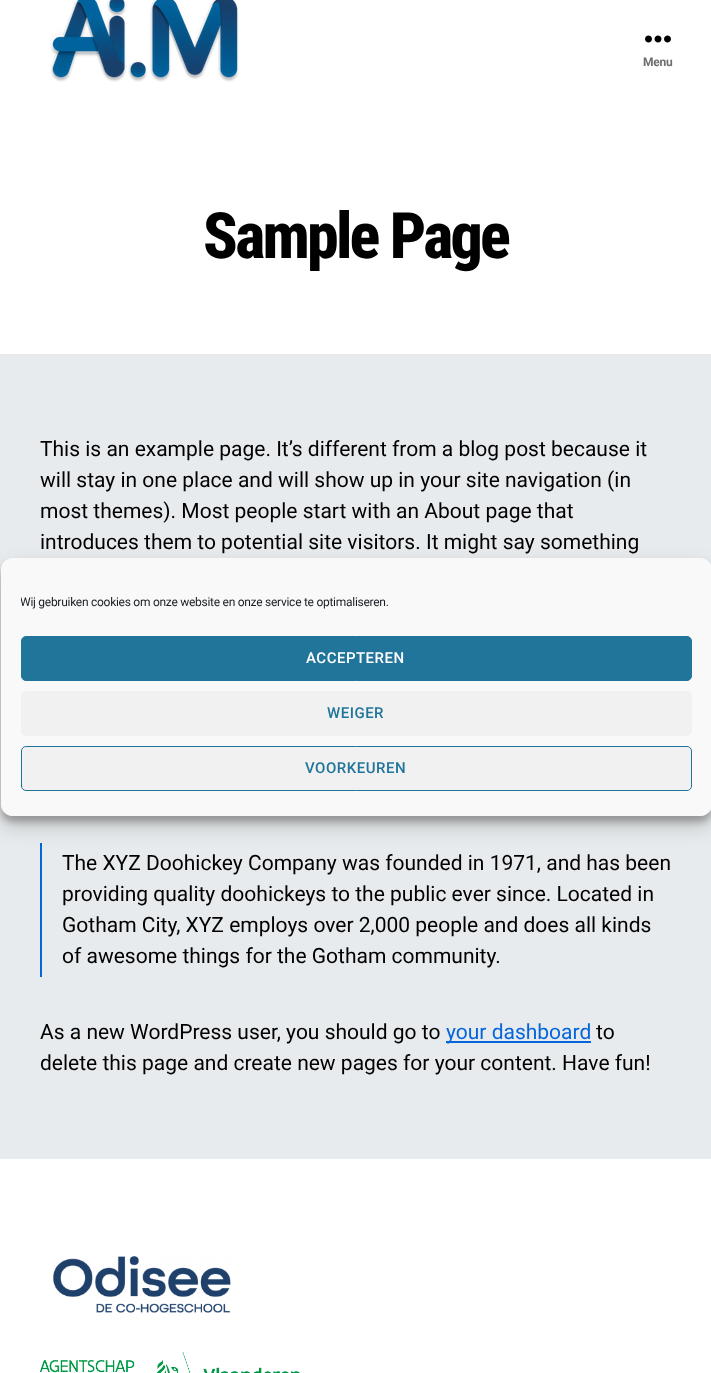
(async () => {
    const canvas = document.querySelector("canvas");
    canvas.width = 711;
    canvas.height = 1373;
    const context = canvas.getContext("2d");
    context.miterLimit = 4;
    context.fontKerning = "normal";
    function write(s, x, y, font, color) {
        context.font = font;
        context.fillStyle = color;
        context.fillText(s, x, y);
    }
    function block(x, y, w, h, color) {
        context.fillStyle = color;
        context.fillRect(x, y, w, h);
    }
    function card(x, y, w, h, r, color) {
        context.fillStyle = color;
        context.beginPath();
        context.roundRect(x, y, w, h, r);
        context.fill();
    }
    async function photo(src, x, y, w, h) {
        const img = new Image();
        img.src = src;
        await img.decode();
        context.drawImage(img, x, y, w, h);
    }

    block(0, 0, 711, 1373, "rgb(232, 235, 237)");
    block(0, 0, 711, 354, "rgb(255, 255, 255)");
    await photo("media/1.png", 50, 0, 189, 82);
    await photo("media/2.png", 645, 35, 26, 8);
    context.letterSpacing = "-0.27px";
    write("Menu", 643, 66, "bold 12px Roboto", "rgb(109, 109, 109)");
    context.letterSpacing = "-2.75px";
    write("Sample Page", 203, 258, "800 64px Roboto Condensed", "rgb(0, 0, 0)");
    context.letterSpacing = "0px";
    write("This is an example page. It’s different from a blog post because it", 40, 456, "21px Roboto", "rgb(0, 0, 0)");
    write("will stay in one place and will show up in your site navigation (in", 40, 487, "21px Roboto", "rgb(0, 0, 0)");
    write("most themes). Most people start with an About page that", 40, 518, "21px Roboto", "rgb(0, 0, 0)");
    write("introduces them to potential site visitors. It might say something", 40, 549, "21px Roboto", "rgb(0, 0, 0)");
    block(40, 843, 2, 134, "rgb(5, 101, 218)");
    write("The XYZ Doohickey Company was founded in 1971, and has been", 62, 870, "21px Roboto", "rgb(0, 0, 0)");
    write("providing quality doohickeys to the public ever since. Located in", 62, 901, "21px Roboto", "rgb(0, 0, 0)");
    write("Gotham City, XYZ employs over 2,000 people and does all kinds", 62, 932, "21px Roboto", "rgb(0, 0, 0)");
    write("of awesome things for the Gotham community.", 62, 963, "21px Roboto", "rgb(0, 0, 0)");
    write("As a new WordPress user, you should go to", 40, 1039, "21px Roboto", "rgb(0, 0, 0)");
    block(446, 1041, 145, 2, "rgb(5, 101, 218)");
    write("your dashboard", 446, 1039, "21px Roboto", "rgb(5, 101, 218)");
    write("to", 596, 1039, "21px Roboto", "rgb(0, 0, 0)");
    write("delete this page and create new pages for your content. Have fun!", 40, 1070, "21px Roboto", "rgb(0, 0, 0)");
    context.save();
    context.beginPath();
    context.moveTo(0, 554);
    context.lineTo(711, 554);
    context.lineTo(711, 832);
    context.lineTo(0, 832);
    context.closePath();
    context.moveTo(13, 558);
    context.lineTo(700, 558);
    context.bezierCurveTo(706.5, 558, 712, 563.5, 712, 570);
    context.lineTo(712, 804);
    context.bezierCurveTo(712, 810.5, 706.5, 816, 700, 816);
    context.lineTo(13, 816);
    context.bezierCurveTo(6.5, 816, 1, 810.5, 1, 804);
    context.lineTo(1, 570);
    context.bezierCurveTo(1, 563.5, 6.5, 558, 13, 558);
    context.closePath();
    context.clip("evenodd");
    context.fillStyle = "rgba(0, 0, 0, 0.23)";
    context.filter = "blur(3px)";
    context.beginPath();
    context.roundRect(1, 564, 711, 258, 12);
    context.fill();
    context.filter = "none";
    context.restore();
    context.save();
    context.beginPath();
    context.moveTo(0, 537);
    context.lineTo(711, 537);
    context.lineTo(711, 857);
    context.lineTo(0, 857);
    context.closePath();
    context.moveTo(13, 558);
    context.lineTo(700, 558);
    context.bezierCurveTo(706.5, 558, 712, 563.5, 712, 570);
    context.lineTo(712, 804);
    context.bezierCurveTo(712, 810.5, 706.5, 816, 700, 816);
    context.lineTo(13, 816);
    context.bezierCurveTo(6.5, 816, 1, 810.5, 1, 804);
    context.lineTo(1, 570);
    context.bezierCurveTo(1, 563.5, 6.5, 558, 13, 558);
    context.closePath();
    context.clip("evenodd");
    context.fillStyle = "rgba(0, 0, 0, 0.19)";
    context.filter = "blur(10px)";
    context.beginPath();
    context.roundRect(1, 568, 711, 258, 12);
    context.fill();
    context.filter = "none";
    context.restore();
    card(1, 558, 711, 258, 12, "rgb(249, 249, 249)");
    context.save();
    context.beginPath();
    context.rect(21, 593, 671, 23);
    context.clip();
    context.letterSpacing = "-0.27px";
    write("Wij gebruiken cookies om onze website en onze service te optimaliseren.", 20, 606, "12px Roboto", "rgb(25, 30, 35)");
    context.restore();
    context.fillStyle = "rgb(33, 117, 155)";
    context.beginPath();
    context.roundRect(21.5, 636.5, 670, 44, 4.5);
    context.fill();
    context.strokeStyle = "rgb(33, 117, 155)";
    context.stroke();
    context.letterSpacing = "0.5px";
    write("ACCEPTEREN", 306, 663, "500 15px Roboto", "rgb(255, 255, 255)");
    card(21, 691, 671, 45, 5, "rgb(241, 241, 241)");
    write("WEIGER", 327, 718, "500 15px Roboto", "rgb(33, 117, 155)");
    context.fillStyle = "rgb(241, 241, 241)";
    context.beginPath();
    context.roundRect(21.5, 746.5, 670, 44, 4.5);
    context.fill();
    context.stroke();
    write("VOORKEUREN", 305, 773, "500 15px Roboto", "rgb(33, 117, 155)");
    block(0, 1159, 711, 214, "rgb(255, 255, 255)");
    await photo("media/3.png", 53, 1256, 178, 57);
    await photo("media/4.png", 40, 1352, 260, 21);
})();
